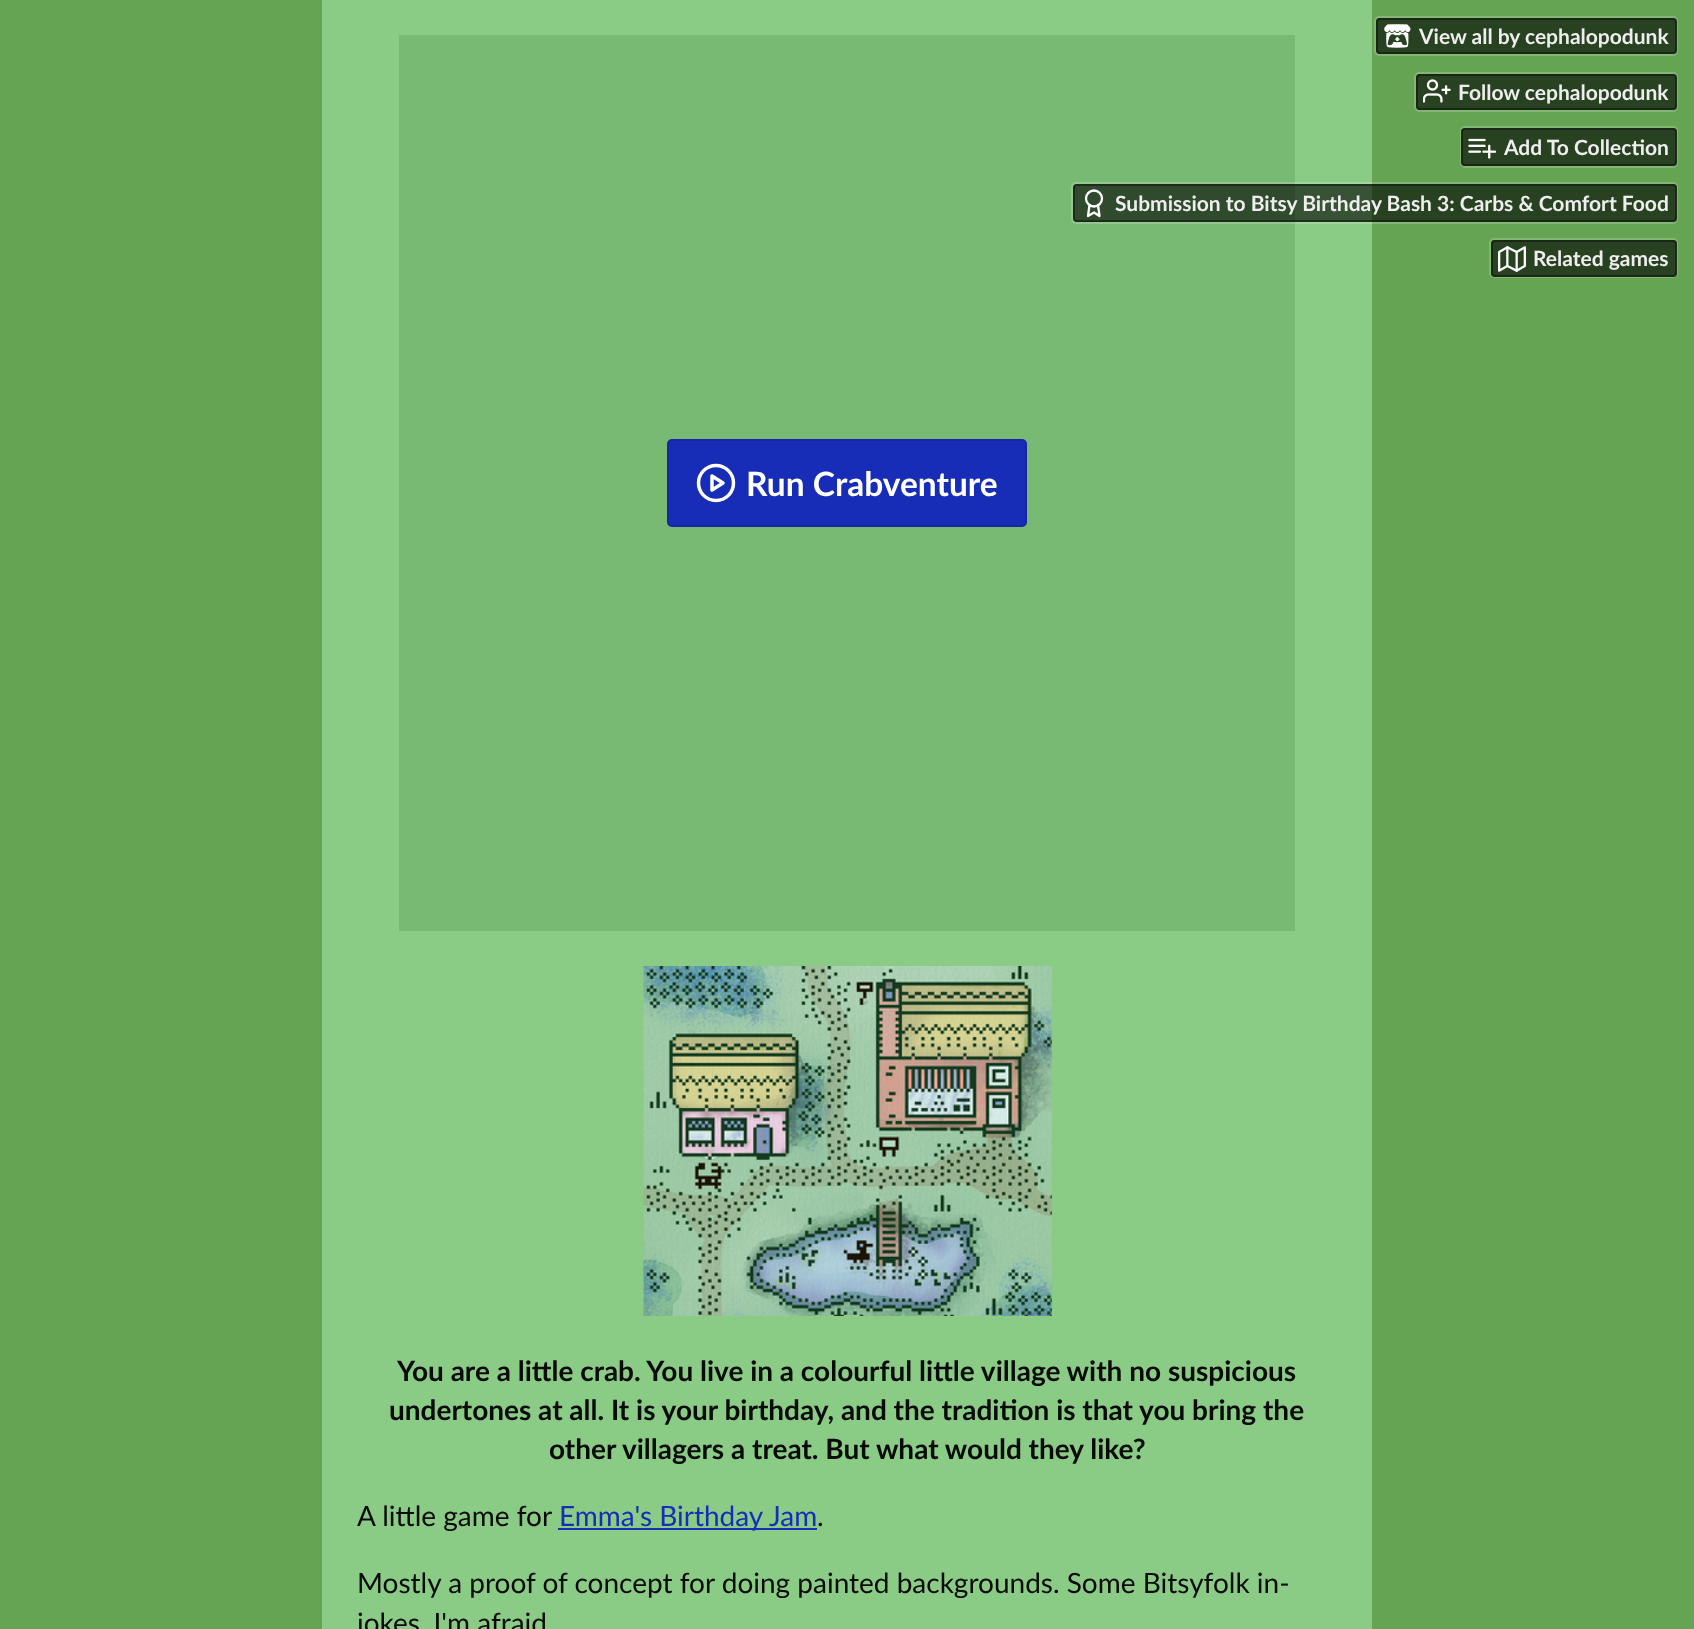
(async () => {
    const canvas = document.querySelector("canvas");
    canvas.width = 1694;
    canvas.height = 1629;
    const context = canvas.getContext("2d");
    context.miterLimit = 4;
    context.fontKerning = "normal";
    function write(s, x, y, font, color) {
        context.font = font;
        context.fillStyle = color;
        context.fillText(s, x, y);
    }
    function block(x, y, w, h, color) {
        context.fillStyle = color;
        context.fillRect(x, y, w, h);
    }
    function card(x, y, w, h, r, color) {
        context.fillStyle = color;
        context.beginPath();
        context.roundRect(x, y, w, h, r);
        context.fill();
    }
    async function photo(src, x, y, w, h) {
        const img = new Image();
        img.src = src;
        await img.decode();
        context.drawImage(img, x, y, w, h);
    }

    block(0, 0, 1694, 1629, "rgb(100, 164, 83)");
    context.beginPath();
    context.roundRect(1375, 17, 302, 38, 4);
    context.strokeStyle = "rgb(131, 182, 117)";
    context.lineWidth = 2;
    context.stroke();
    card(1376, 18, 301, 36, 4, "rgba(0, 0, 0, 0.6)");
    context.beginPath();
    context.roundRect(1377, 19, 299, 34, 3);
    context.strokeStyle = "rgba(10, 10, 10, 0.5)";
    context.stroke();
    await photo("media/1.png", 1384, 24, 27, 24);
    write("View all by cephalopodunk", 1419, 44, "bold 21px Lato", "rgb(238, 238, 238)");
    context.beginPath();
    context.roundRect(1415, 73, 262, 38, 4);
    context.strokeStyle = "rgb(131, 182, 117)";
    context.stroke();
    card(1416, 74, 261, 36, 4, "rgba(0, 0, 0, 0.6)");
    context.beginPath();
    context.roundRect(1417, 75, 259, 34, 3);
    context.strokeStyle = "rgba(10, 10, 10, 0.5)";
    context.stroke();
    await photo("media/2.png", 1423, 79, 28, 24);
    write("Follow cephalopodunk", 1458, 100, "bold 21px Lato", "rgb(238, 238, 238)");
    context.beginPath();
    context.roundRect(1461, 127, 216, 40, 4);
    context.strokeStyle = "rgb(131, 182, 117)";
    context.stroke();
    card(1461, 128, 216, 38, 4, "rgba(0, 0, 0, 0.6)");
    context.beginPath();
    context.roundRect(1462, 129, 214, 36, 3);
    context.strokeStyle = "rgba(10, 10, 10, 0.5)";
    context.stroke();
    await photo("media/3.png", 1468, 138, 28, 21);
    write("Add To Collection", 1504, 155, "bold 21px Lato", "rgb(238, 238, 238)");
    block(322, 0, 1050, 1629, "rgb(138, 204, 133)");
    block(399, 35, 896, 896, "rgb(120, 186, 115)");
    context.beginPath();
    context.roundRect(1072, 183, 605, 40, 4);
    context.strokeStyle = "rgba(255, 255, 255, 0.2)";
    context.stroke();
    card(1073, 184, 604, 38, 4, "rgba(0, 0, 0, 0.6)");
    context.beginPath();
    context.roundRect(1074, 185, 602, 36, 3);
    context.strokeStyle = "rgba(10, 10, 10, 0.5)";
    context.stroke();
    context.beginPath();
    context.arc(1094, 198.5, 8, 0, Math.PI * 2);
    context.strokeStyle = "rgb(255, 255, 255)";
    context.lineWidth = 2.3;
    context.stroke();
    context.beginPath();
    context.moveTo(1089.5, 205);
    context.lineTo(1088, 216);
    context.lineTo(1094, 212.5);
    context.lineTo(1099.5, 216);
    context.lineTo(1098, 205);
    context.lineCap = "round";
    context.lineJoin = "round";
    context.stroke();
    write("Submission to Bitsy Birthday Bash 3: Carbs & Comfort Food", 1115, 211, "bold 21px Lato", "rgb(238, 238, 238)");
    context.beginPath();
    context.roundRect(1490, 239, 187, 38, 4);
    context.strokeStyle = "rgb(131, 182, 117)";
    context.lineWidth = 2;
    context.lineJoin = "miter";
    context.stroke();
    card(1491, 240, 186, 37, 4, "rgba(0, 0, 0, 0.6)");
    context.beginPath();
    context.roundRect(1492, 241, 184, 35, 3);
    context.strokeStyle = "rgba(10, 10, 10, 0.5)";
    context.stroke();
    await photo("media/4.png", 1498, 246, 28, 26);
    write("Related games", 1533, 266, "bold 21px Lato", "rgb(238, 238, 238)");
    card(667, 439, 360, 88, 5, "rgb(23, 45, 183)");
    context.beginPath();
    context.roundRect(668, 440, 358, 86, 4);
    context.strokeStyle = "rgba(0, 0, 0, 0.1)";
    context.stroke();
    context.beginPath();
    context.arc(716, 483, 17.5, 0, Math.PI * 2);
    context.strokeStyle = "rgb(255, 255, 255)";
    context.lineWidth = 3.5;
    context.stroke();
    context.beginPath();
    context.moveTo(712, 476);
    context.lineTo(723, 483);
    context.lineTo(712, 490);
    context.closePath();
    context.lineJoin = "round";
    context.stroke();
    write("Run Crabventure", 746, 496, "bold 33.5px Lato", "rgb(255, 255, 255)");
    await photo("media/5.png", 643, 966, 409, 350);
    write("You are a little crab. You live in a colourful little village with no suspicious", 397, 1381, "bold 28px Lato", "rgb(9, 10, 9)");
    write("undertones at all. It is your birthday, and the tradition is that you bring the", 389, 1420, "bold 28px Lato", "rgb(9, 10, 9)");
    write("other villagers a treat. But what would they like?", 549, 1459, "bold 28px Lato", "rgb(9, 10, 9)");
    write("A little game for", 357, 1526, "28px Lato", "rgb(9, 10, 9)");
    block(558, 1528, 259, 2, "rgb(23, 45, 183)");
    write("Emma's Birthday Jam", 559, 1526, "28px Lato", "rgb(23, 45, 183)");
    write(".", 817, 1526, "28px Lato", "rgb(9, 10, 9)");
    write("Mostly a proof of concept for doing painted backgrounds. Some Bitsyfolk in-", 357, 1593, "28px Lato", "rgb(9, 10, 9)");
    write("jokes, I'm afraid", 357, 1633, "28px Lato", "rgb(9, 10, 9)");
})();
